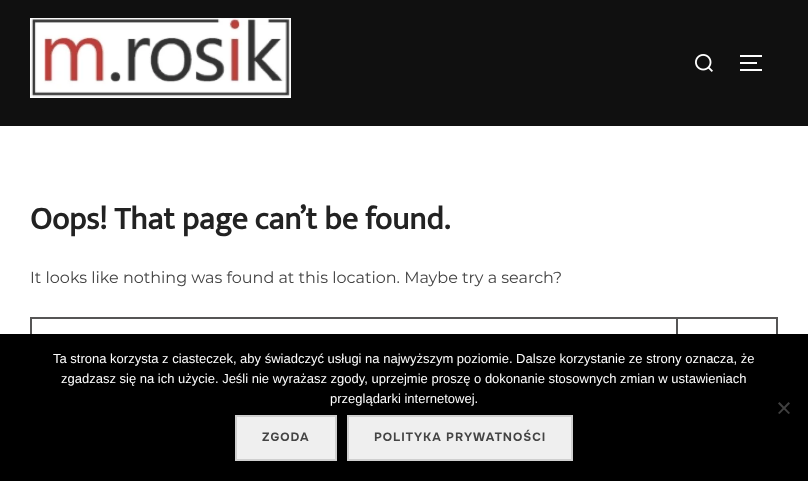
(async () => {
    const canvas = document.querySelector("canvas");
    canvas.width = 808;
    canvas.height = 481;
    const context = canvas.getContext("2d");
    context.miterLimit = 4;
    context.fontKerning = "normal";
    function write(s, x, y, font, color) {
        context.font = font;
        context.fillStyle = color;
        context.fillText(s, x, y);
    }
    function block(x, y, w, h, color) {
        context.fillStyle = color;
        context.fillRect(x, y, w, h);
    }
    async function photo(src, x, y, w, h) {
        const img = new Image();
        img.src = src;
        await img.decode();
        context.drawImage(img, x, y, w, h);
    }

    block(0, 0, 808, 481, "rgb(255, 255, 255)");
    block(0, 0, 808, 126, "rgb(16, 16, 16)");
    await photo("media/1.png", 30, 18, 261, 80);
    await photo("media/2.png", 695, 54, 18, 18);
    block(740, 55, 22, 2, "rgb(255, 255, 255)");
    block(740, 62, 17, 2, "rgb(255, 255, 255)");
    block(740, 69, 22, 2, "rgb(255, 255, 255)");
    write("Oops! That page can’t be found.", 30, 229, "bold 32px Mukta Vaani", "rgb(34, 34, 34)");
    write("It looks like nothing was found at this location. Maybe try a search?", 30, 283, "100 16px Montserrat", "rgb(68, 68, 68)");
    context.strokeStyle = "rgb(86, 85, 85)";
    context.lineWidth = 2;
    context.strokeRect(31, 318, 746, 38);
    context.strokeRect(677, 318, 100, 38);
    block(0, 334, 808, 147, "rgb(0, 0, 0)");
    write("Ta strona korzysta z ciasteczek, aby świadczyć usługi na najwyższym poziomie. Dalsze korzystanie ze strony oznacza, że", 53, 363, "13px Liberation Sans", "rgb(255, 255, 255)");
    write("zgadzasz się na ich użycie. Jeśli nie wyrażasz zgody, uprzejmie proszę o dokonanie stosownych zmian w ustawieniach", 61, 383, "13px Liberation Sans", "rgb(255, 255, 255)");
    write("przeglądarki internetowej.", 330, 403, "13px Liberation Sans", "rgb(255, 255, 255)");
    context.fillStyle = "rgb(64, 64, 64)";
    context.beginPath();
    context.moveTo(788.5, 402);
    context.lineTo(790, 403.5);
    context.lineTo(779.5, 414);
    context.lineTo(778, 413);
    context.closePath();
    context.fill();
    context.beginPath();
    context.moveTo(778, 403.5);
    context.lineTo(779.5, 402);
    context.lineTo(790, 413);
    context.lineTo(788.5, 414);
    context.closePath();
    context.fill();
    context.fillStyle = "rgb(239, 239, 239)";
    context.beginPath();
    context.rect(236, 416, 100, 44);
    context.fill();
    context.strokeStyle = "rgb(207, 207, 207)";
    context.stroke();
    context.letterSpacing = "1px";
    write("ZGODA", 262, 441, "bold 12px Onest", "rgb(68, 68, 68)");
    context.fillStyle = "rgb(239, 239, 239)";
    context.beginPath();
    context.rect(348, 416, 224, 44);
    context.fill();
    context.stroke();
    write("POLITYKA PRYWATNOŚCI", 374, 441, "bold 12px Onest", "rgb(68, 68, 68)");
})();
